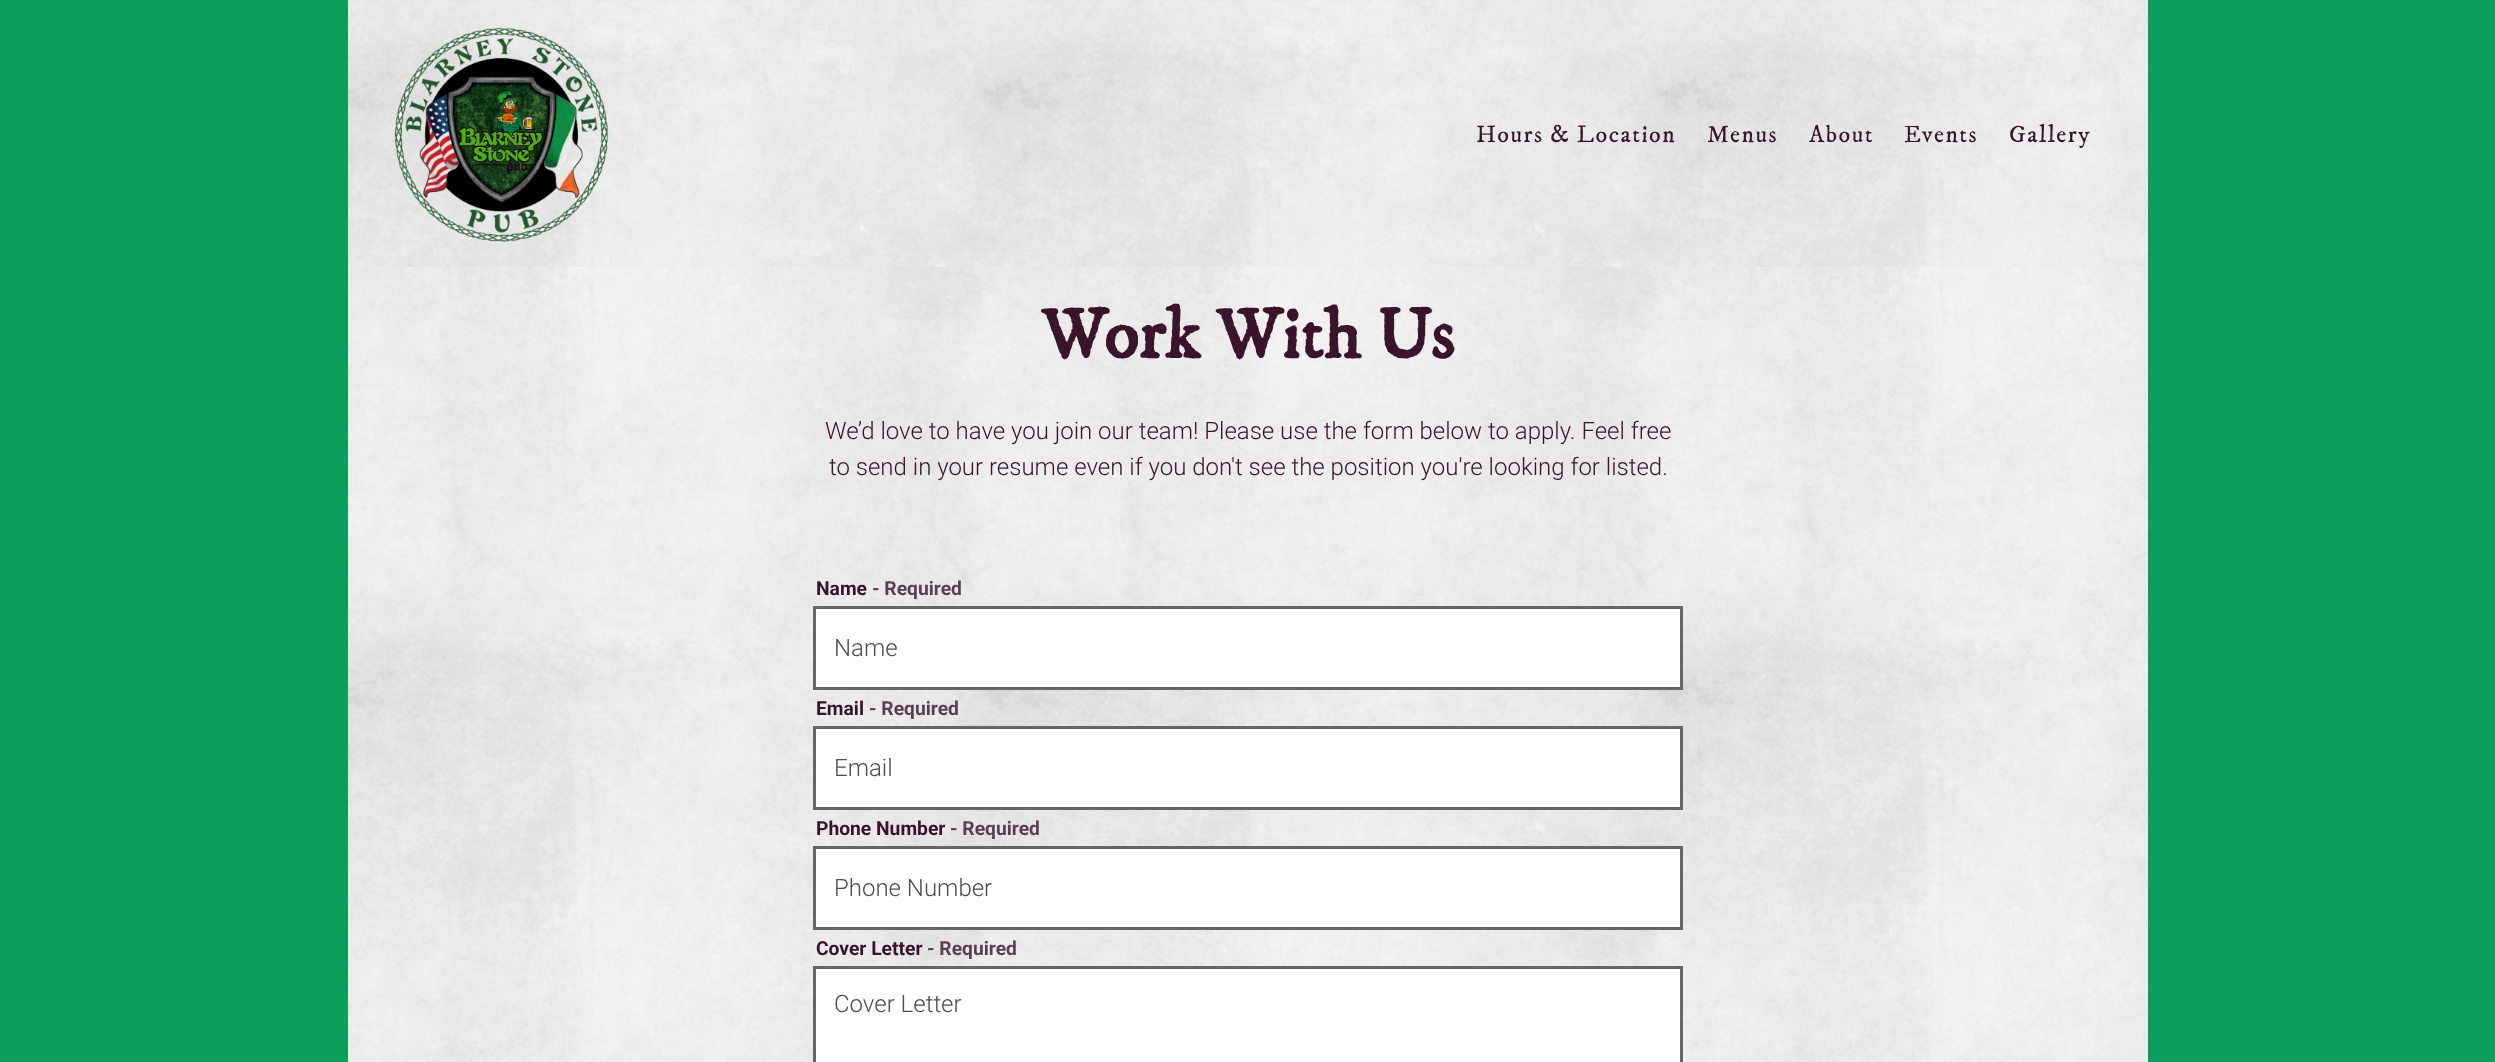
(async () => {
    const canvas = document.querySelector("canvas");
    canvas.width = 2495;
    canvas.height = 1062;
    const context = canvas.getContext("2d");
    context.miterLimit = 4;
    context.fontKerning = "normal";
    function write(s, x, y, font, color) {
        context.font = font;
        context.fillStyle = color;
        context.fillText(s, x, y);
    }
    function block(x, y, w, h, color) {
        context.fillStyle = color;
        context.fillRect(x, y, w, h);
    }
    async function photo(src, x, y, w, h) {
        const img = new Image();
        img.src = src;
        await img.decode();
        context.drawImage(img, x, y, w, h);
    }

    block(0, 0, 2495, 1062, "rgb(12, 159, 91)");
    block(348, 0, 1800, 1062, "rgb(255, 255, 255)");
    await photo("media/1.png", 348, 0, 1800, 267);
    await photo("media/2.png", 394, 27, 215, 215);
    context.letterSpacing = "1.5px";
    write("Hours & Location", 1476, 142, "24px IM FELL DW Pica", "rgb(57, 20, 43)");
    write("Menus", 1707, 142, "24px IM FELL DW Pica", "rgb(57, 20, 43)");
    write("About", 1809, 142, "24px IM FELL DW Pica", "rgb(57, 20, 43)");
    write("Events", 1904, 142, "24px IM FELL DW Pica", "rgb(57, 20, 43)");
    write("Gallery", 2009, 142, "24px IM FELL DW Pica", "rgb(57, 20, 43)");
    await photo("media/3.png", 348, 267, 1800, 795);
    context.letterSpacing = "0px";
    write("Work With Us", 1041, 358, "bold 72px IM FELL DW Pica", "rgb(57, 20, 43)");
    write("We’d love to have you join our team! Please use the form below to apply. Feel free", 825, 439, "300 24px Roboto", "rgb(57, 20, 43)");
    write("to send in your resume even if you don't see the position you're looking for listed.", 829, 475, "300 24px Roboto", "rgb(57, 20, 43)");
    write("Name", 816, 595, "bold 19.25px Roboto", "rgb(57, 20, 43)");
    write("- Required", 872, 595, "bold 19.25px Roboto", "rgb(92, 63, 81)");
    context.fillStyle = "rgb(255, 255, 255)";
    context.beginPath();
    context.rect(814.5, 607.5, 867, 81);
    context.fill();
    context.strokeStyle = "rgb(102, 102, 102)";
    context.lineWidth = 3;
    context.stroke();
    write("Name", 834, 656, "300 24px Roboto", "rgb(77, 77, 77)");
    write("Email", 816, 715, "bold 19.25px Roboto", "rgb(57, 20, 43)");
    write("- Required", 869, 715, "bold 19.25px Roboto", "rgb(92, 63, 81)");
    context.fillStyle = "rgb(255, 255, 255)";
    context.beginPath();
    context.rect(814.5, 727.5, 867, 81);
    context.fill();
    context.stroke();
    write("Email", 834, 776, "300 24px Roboto", "rgb(77, 77, 77)");
    write("Phone Number", 816, 835, "bold 19.25px Roboto", "rgb(57, 20, 43)");
    write("- Required", 950, 835, "bold 19.25px Roboto", "rgb(92, 63, 81)");
    context.fillStyle = "rgb(255, 255, 255)";
    context.beginPath();
    context.rect(814.5, 847.5, 867, 81);
    context.fill();
    context.stroke();
    write("Phone Number", 834, 896, "300 24px Roboto", "rgb(77, 77, 77)");
    write("Cover Letter", 816, 955, "bold 19.25px Roboto", "rgb(57, 20, 43)");
    write("- Required", 927, 955, "bold 19.25px Roboto", "rgb(92, 63, 81)");
    context.fillStyle = "rgb(255, 255, 255)";
    context.beginPath();
    context.rect(814.5, 967.5, 867, 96);
    context.fill();
    context.stroke();
    write("Cover Letter", 834, 1012, "300 24px Roboto", "rgb(77, 77, 77)");
})();
